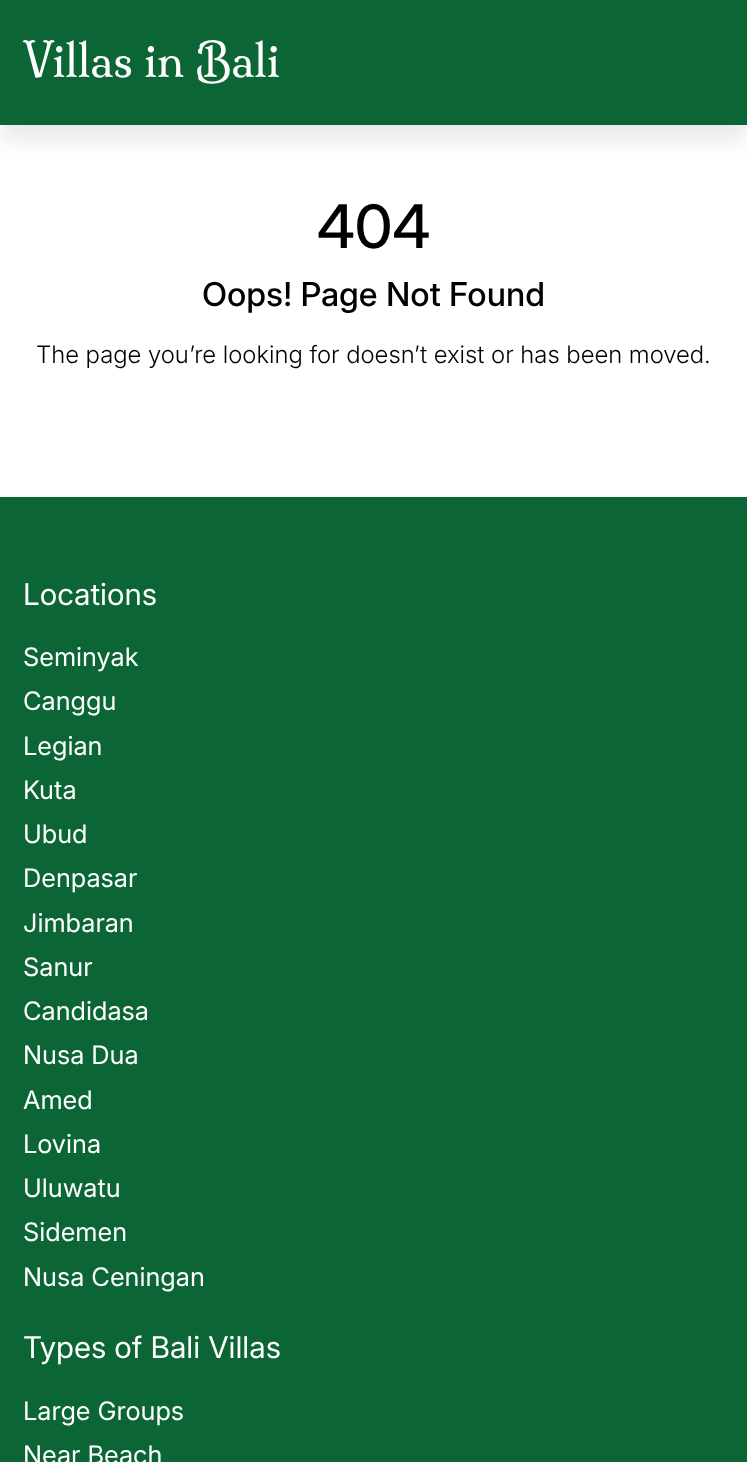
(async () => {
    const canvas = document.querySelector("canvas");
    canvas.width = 747;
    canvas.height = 1462;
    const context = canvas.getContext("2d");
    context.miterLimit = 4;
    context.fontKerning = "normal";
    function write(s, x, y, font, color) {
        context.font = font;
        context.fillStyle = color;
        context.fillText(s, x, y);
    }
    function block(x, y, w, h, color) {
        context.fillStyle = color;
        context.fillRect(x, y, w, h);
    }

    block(0, 0, 747, 1462, "rgb(255, 255, 255)");
    block(0, 0, 747, 125, "rgb(11, 101, 53)");
    context.save();
    context.beginPath();
    context.moveTo(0, 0);
    context.lineTo(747, 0);
    context.lineTo(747, 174);
    context.lineTo(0, 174);
    context.closePath();
    context.moveTo(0, 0);
    context.lineTo(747, 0);
    context.lineTo(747, 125);
    context.lineTo(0, 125);
    context.closePath();
    context.clip("evenodd");
    context.fillStyle = "rgba(25, 25, 25, 0.1)";
    context.filter = "blur(11px)";
    context.beginPath();
    context.rect(0, 15, 747, 125);
    context.fill();
    context.filter = "none";
    context.restore();
    write("Villas in Bali", 23, 77, "45px Milonga", "rgb(255, 255, 255)");
    write("404", 317, 248, "500 60px Inter", "rgb(0, 0, 0)");
    write("Oops! Page Not Found", 202, 306, "500 33px 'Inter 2'", "rgb(0, 0, 0)");
    write("The page you’re looking for doesn’t exist or has been moved.", 36, 363, "300 24px Inter", "rgb(0, 0, 0)");
    block(0, 497, 747, 965, "rgb(11, 101, 53)");
    write("Locations", 23, 605, "30px Inter", "rgb(255, 255, 255)");
    write("Seminyak", 23, 666, "25.5px 'Inter 2'", "rgb(255, 255, 255)");
    write("Canggu", 23, 710, "25.5px 'Inter 2'", "rgb(255, 255, 255)");
    write("Legian", 23, 755, "25.5px 'Inter 2'", "rgb(255, 255, 255)");
    write("Kuta", 23, 799, "25.5px 'Inter 2'", "rgb(255, 255, 255)");
    write("Ubud", 23, 843, "25.5px 'Inter 2'", "rgb(255, 255, 255)");
    write("Denpasar", 23, 887, "25.5px 'Inter 2'", "rgb(255, 255, 255)");
    write("Jimbaran", 23, 932, "25.5px 'Inter 2'", "rgb(255, 255, 255)");
    write("Sanur", 23, 976, "25.5px 'Inter 2'", "rgb(255, 255, 255)");
    write("Candidasa", 23, 1020, "25.5px 'Inter 2'", "rgb(255, 255, 255)");
    write("Nusa Dua", 23, 1064, "25.5px 'Inter 2'", "rgb(255, 255, 255)");
    write("Amed", 23, 1109, "25.5px 'Inter 2'", "rgb(255, 255, 255)");
    write("Lovina", 23, 1153, "25.5px 'Inter 2'", "rgb(255, 255, 255)");
    write("Uluwatu", 23, 1197, "25.5px 'Inter 2'", "rgb(255, 255, 255)");
    write("Sidemen", 23, 1241, "25.5px 'Inter 2'", "rgb(255, 255, 255)");
    write("Nusa Ceningan", 23, 1286, "25.5px 'Inter 2'", "rgb(255, 255, 255)");
    write("Types of Bali Villas", 23, 1358, "30px Inter", "rgb(255, 255, 255)");
    write("Large Groups", 23, 1420, "25.5px 'Inter 2'", "rgb(255, 255, 255)");
    write("Near Beach", 23, 1464, "25.5px 'Inter 2'", "rgb(255, 255, 255)");
})();
